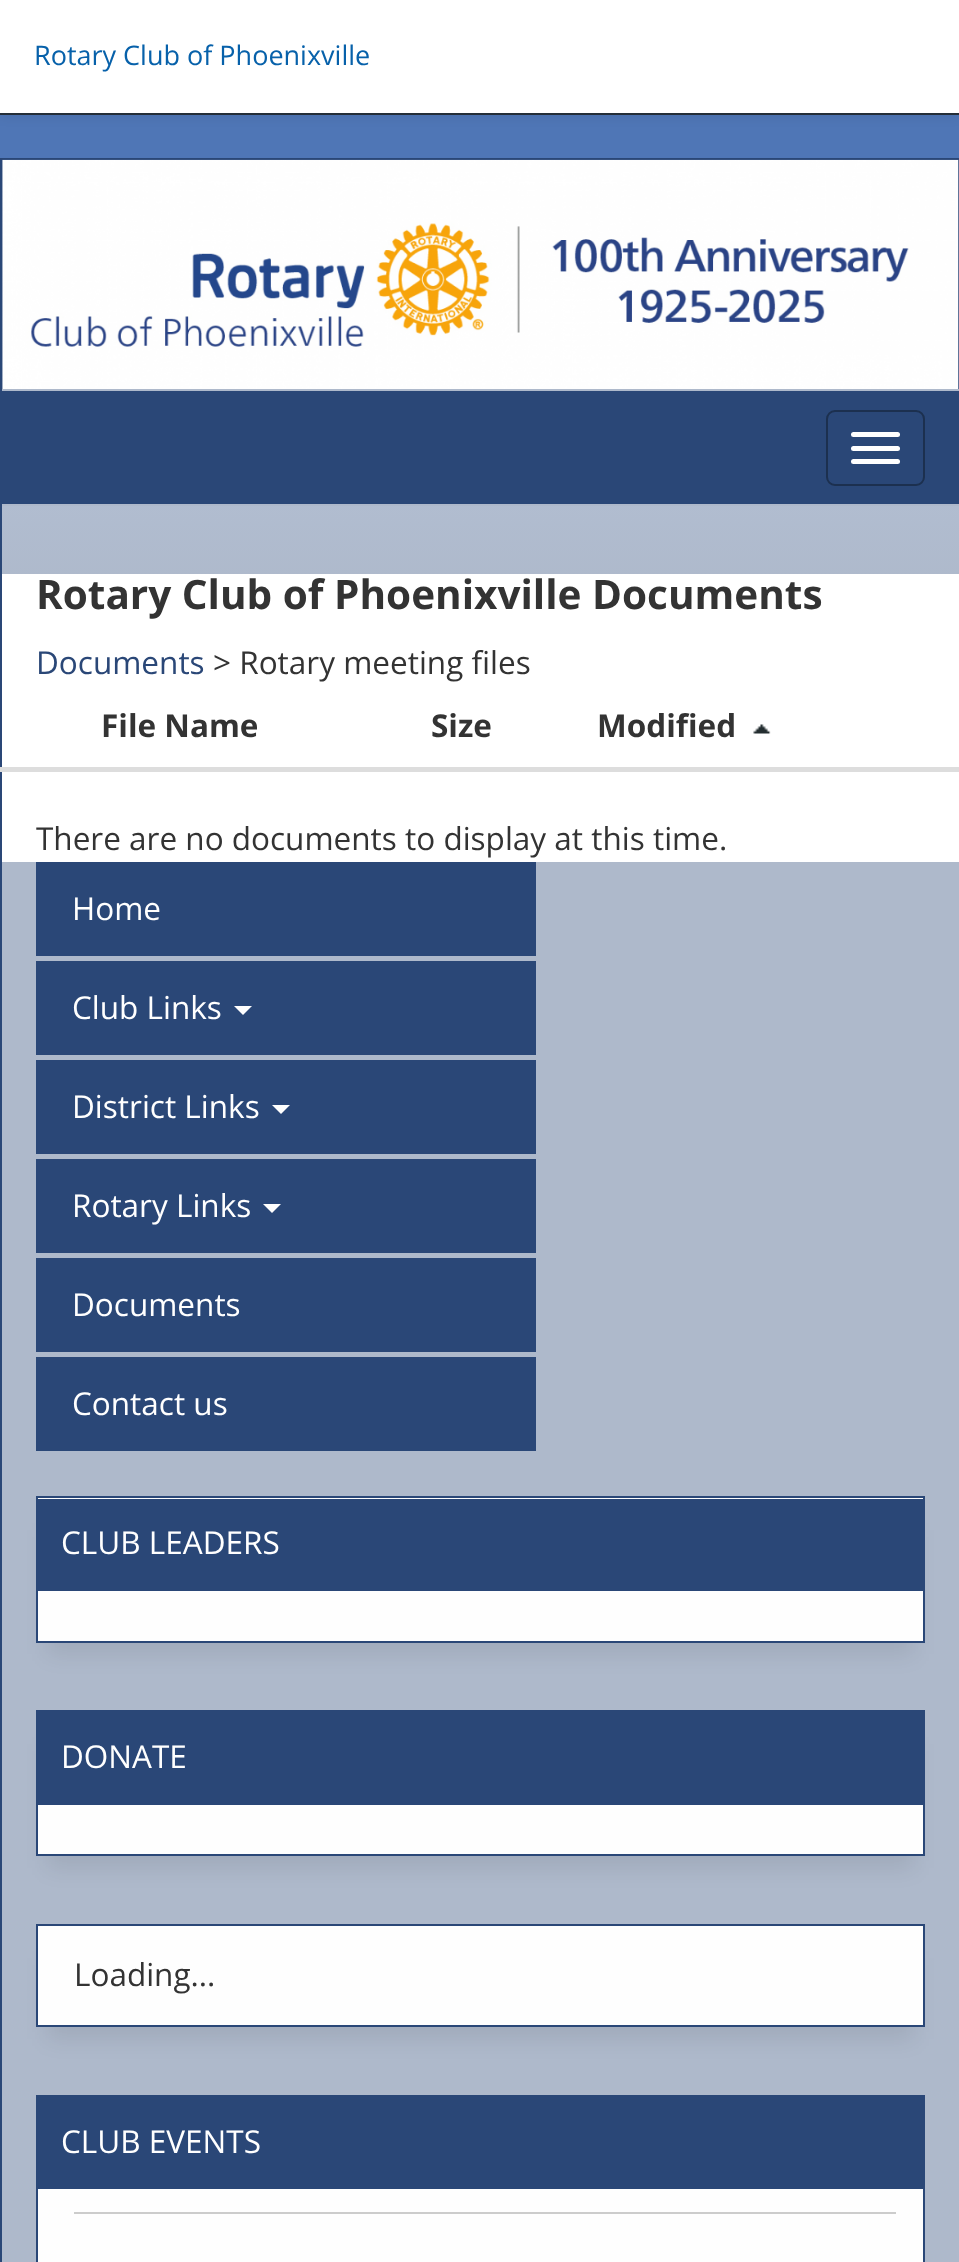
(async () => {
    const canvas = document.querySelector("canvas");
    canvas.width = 959;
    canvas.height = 2262;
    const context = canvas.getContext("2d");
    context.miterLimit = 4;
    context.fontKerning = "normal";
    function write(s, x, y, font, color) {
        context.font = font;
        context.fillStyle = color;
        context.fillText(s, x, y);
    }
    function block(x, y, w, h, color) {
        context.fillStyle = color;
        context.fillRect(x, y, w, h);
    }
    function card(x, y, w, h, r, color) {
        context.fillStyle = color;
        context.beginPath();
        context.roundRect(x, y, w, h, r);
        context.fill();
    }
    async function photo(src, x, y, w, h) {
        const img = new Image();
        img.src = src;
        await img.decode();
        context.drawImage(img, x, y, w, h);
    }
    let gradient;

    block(0, 0, 959, 2262, "rgb(255, 255, 255)");
    gradient = context.createLinearGradient(480, 0, 480, 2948);
    gradient.addColorStop(0.06, "rgb(79, 118, 182)");
    gradient.addColorStop(0.2, "rgb(42, 71, 119)");
    context.fillStyle = gradient;
    context.fillRect(0, 115, 959, 43);
    gradient = context.createLinearGradient(480, 0, 480, 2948);
    gradient.addColorStop(0.06, "rgb(188, 203, 227)");
    gradient.addColorStop(0.2, "rgb(174, 185, 203)");
    context.fillStyle = gradient;
    context.fillRect(2, 506, 957, 1756);
    context.fillStyle = "rgba(0, 0, 0, 0.07)";
    context.filter = "blur(5.5px)";
    context.beginPath();
    context.rect(0, 2, 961, 115);
    context.fill();
    context.filter = "none";
    block(0, 0, 959, 113, "rgb(255, 255, 255)");
    block(0, 113, 959, 2, "rgb(36, 46, 56)");
    write("Rotary Club of Phoenixville", 34, 65, "27px Open Sans", "rgb(7, 97, 170)");
    context.strokeStyle = "rgb(42, 71, 119)";
    context.lineWidth = 2;
    context.strokeRect(1, 159, 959, 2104);
    block(2, 160, 957, 229, "rgb(42, 71, 119)");
    await photo("media/1.png", 2, 159, 957, 230);
    block(2, 391, 957, 113, "rgb(42, 71, 119)");
    block(2, 389, 957, 2, "rgb(174, 185, 203)");
    block(2, 504, 957, 2, "rgb(174, 185, 203)");
    context.beginPath();
    context.roundRect(827, 411, 97, 74, 8);
    context.strokeStyle = "rgb(28, 48, 79)";
    context.stroke();
    card(851, 432, 49, 5, 2.5, "rgb(255, 255, 255)");
    card(851, 446, 49, 5, 2.5, "rgb(255, 255, 255)");
    card(851, 459, 49, 5, 2.5, "rgb(255, 255, 255)");
    block(2, 574, 957, 288, "rgb(255, 255, 255)");
    write("Rotary Club of Phoenixville Documents", 36, 609, "bold 40.5px Open Sans", "rgb(51, 51, 51)");
    write("Documents", 36, 674, "31.5px Open Sans", "rgb(42, 71, 119)");
    write("> Rotary meeting files", 213, 674, "31.5px Open Sans", "rgb(51, 51, 51)");
    write("File Name", 101, 737, "bold 31.5px Open Sans", "rgb(51, 51, 51)");
    write("Size", 431, 737, "bold 31.5px Open Sans", "rgb(51, 51, 51)");
    block(0, 767, 959, 5, "rgb(221, 221, 221)");
    write("Modified", 597, 737, "bold 31.5px Open Sans", "rgb(51, 51, 51)");
    await photo("media/2.png", 753, 724, 18, 10);
    write("There are no documents to display at this time.", 36, 850, "31.5px Open Sans", "rgb(51, 51, 51)");
    block(36, 862, 500, 94, "rgb(42, 71, 119)");
    write("Home", 72, 920, "31.5px Open Sans", "rgb(255, 255, 255)");
    block(36, 961, 500, 94, "rgb(42, 71, 119)");
    write("Club Links", 72, 1019, "31.5px Open Sans", "rgb(255, 255, 255)");
    context.beginPath();
    context.moveTo(234, 1006);
    context.lineTo(252, 1006);
    context.lineTo(243, 1015);
    context.closePath();
    context.fill();
    block(36, 1060, 500, 94, "rgb(42, 71, 119)");
    write("District Links", 72, 1118, "31.5px Open Sans", "rgb(255, 255, 255)");
    context.beginPath();
    context.moveTo(272, 1105);
    context.lineTo(290, 1105);
    context.lineTo(281, 1114);
    context.closePath();
    context.fill();
    block(36, 1159, 500, 94, "rgb(42, 71, 119)");
    write("Rotary Links", 72, 1217, "31.5px Open Sans", "rgb(255, 255, 255)");
    context.beginPath();
    context.moveTo(263, 1204);
    context.lineTo(281, 1204);
    context.lineTo(272, 1213);
    context.closePath();
    context.fill();
    block(36, 1258, 500, 94, "rgb(42, 71, 119)");
    write("Documents", 72, 1316, "31.5px Open Sans", "rgb(255, 255, 255)");
    block(36, 1357, 500, 94, "rgb(42, 71, 119)");
    write("Contact us", 72, 1415, "31.5px Open Sans", "rgb(255, 255, 255)");
    context.fillStyle = "rgba(0, 0, 0, 0.08)";
    context.filter = "blur(11px)";
    context.beginPath();
    context.rect(47, 1530, 867, 124);
    context.fill();
    context.filter = "none";
    context.fillStyle = "rgb(254, 254, 254)";
    context.beginPath();
    context.rect(37, 1497, 887, 145);
    context.fill();
    context.strokeStyle = "rgb(42, 71, 119)";
    context.stroke();
    block(38, 1499, 885, 92, "rgb(42, 71, 119)");
    write("CLUB LEADERS", 61, 1554, "31.5px Open Sans", "rgb(255, 255, 255)");
    context.fillStyle = "rgba(0, 0, 0, 0.08)";
    context.filter = "blur(11px)";
    context.beginPath();
    context.rect(47, 1744, 867, 124);
    context.fill();
    context.filter = "none";
    block(38, 1805, 885, 49, "rgb(254, 254, 254)");
    context.strokeRect(37, 1711, 887, 144);
    block(38, 1712, 885, 93, "rgb(42, 71, 119)");
    write("DONATE", 61, 1768, "31.5px Open Sans", "rgb(255, 255, 255)");
    context.fillStyle = "rgba(0, 0, 0, 0.08)";
    context.filter = "blur(11px)";
    context.beginPath();
    context.rect(47, 1958, 867, 81);
    context.fill();
    context.filter = "none";
    context.fillStyle = "rgb(254, 254, 254)";
    context.beginPath();
    context.rect(37, 1925, 887, 101);
    context.fill();
    context.stroke();
    write("Loading...", 74, 1986, "31.5px Open Sans", "rgb(51, 51, 51)");
    block(38, 2189, 885, 73, "rgb(254, 254, 254)");
    context.strokeRect(37, 2096, 887, 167);
    block(38, 2097, 885, 92, "rgb(42, 71, 119)");
    write("CLUB EVENTS", 61, 2153, "31.5px Open Sans", "rgb(255, 255, 255)");
    block(74, 2212, 822, 2, "rgb(204, 204, 204)");
})();
